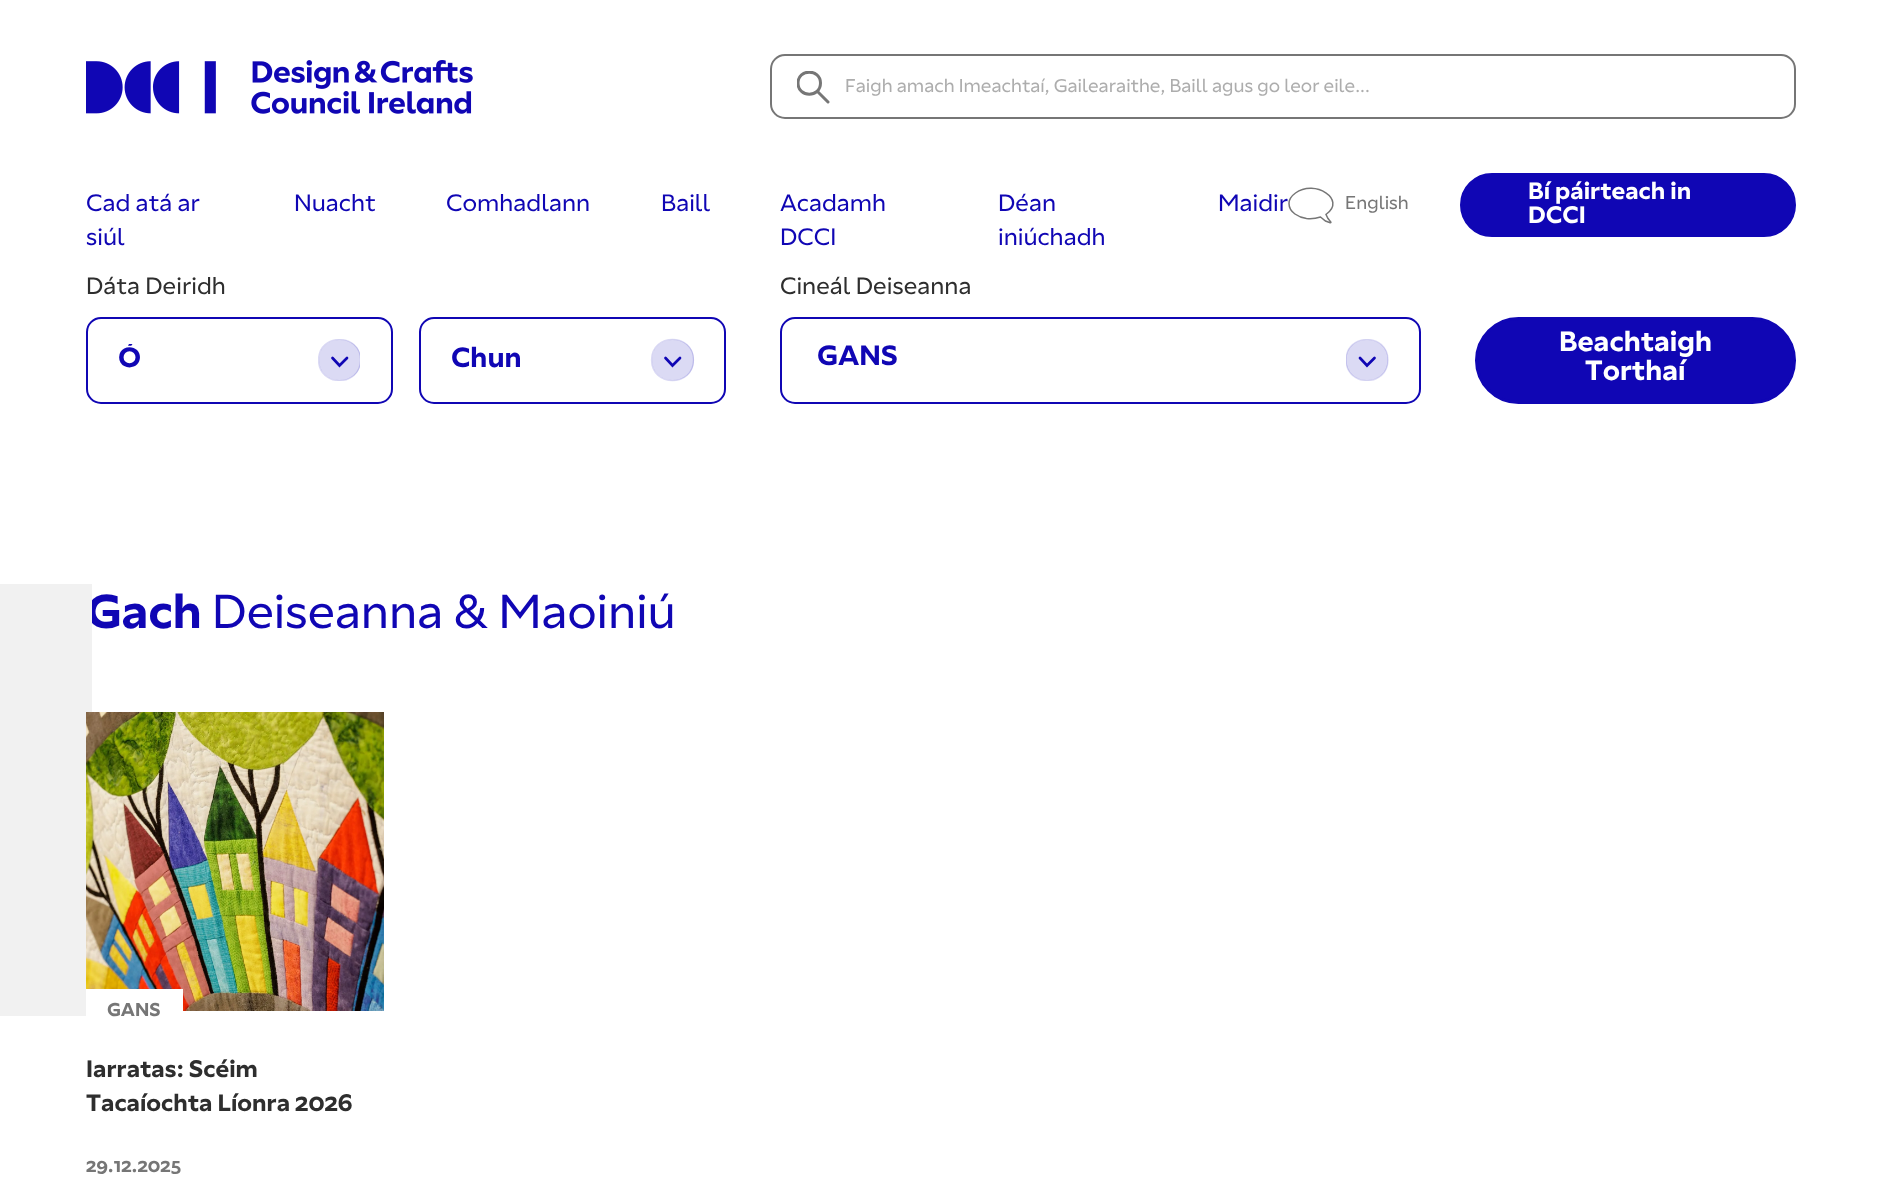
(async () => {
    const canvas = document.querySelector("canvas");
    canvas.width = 1880;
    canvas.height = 1191;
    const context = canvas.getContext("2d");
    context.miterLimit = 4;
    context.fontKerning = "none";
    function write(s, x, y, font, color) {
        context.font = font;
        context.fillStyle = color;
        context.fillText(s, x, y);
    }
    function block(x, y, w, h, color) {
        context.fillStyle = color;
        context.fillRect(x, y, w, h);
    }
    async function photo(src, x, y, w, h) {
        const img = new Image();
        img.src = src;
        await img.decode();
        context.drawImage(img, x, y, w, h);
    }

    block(0, 0, 1880, 1191, "rgb(255, 255, 255)");
    await photo("media/1.png", 86, 60, 387, 54);
    context.beginPath();
    context.roundRect(771, 55, 1024, 63, 14);
    context.strokeStyle = "rgb(118, 118, 118)";
    context.lineWidth = 2;
    context.stroke();
    context.save();
    context.beginPath();
    context.rect(797, 71, 33, 33);
    context.clip();
    context.beginPath();
    context.moveTo(822.5, 96.5);
    context.lineTo(817.5, 91.5);
    context.moveTo(820.5, 94.5);
    context.lineTo(828, 102);
    context.moveTo(798, 83);
    context.bezierCurveTo(798, 98, 820.5, 98, 820.5, 83);
    context.bezierCurveTo(820.5, 68.5, 798, 68.5, 798, 83);
    context.closePath();
    context.lineWidth = 3;
    context.lineCap = "round";
    context.stroke();
    context.restore();
    write("Faigh amach Imeachtaí, Gailearaithe, Baill agus go leor eile...", 845, 92, "18.9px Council", "rgb(173, 173, 173)");
    write("Cad atá ar", 86, 211, "24.25px Council", "rgb(16, 6, 180)");
    write("siúl", 86, 245, "24.25px Council", "rgb(16, 6, 180)");
    write("Nuacht", 294, 211, "24.25px Council", "rgb(16, 6, 180)");
    write("Comhadlann", 446, 211, "24.25px Council", "rgb(16, 6, 180)");
    write("Baill", 661, 211, "24.25px Council", "rgb(16, 6, 180)");
    write("Acadamh", 780, 211, "24.25px Council", "rgb(16, 6, 180)");
    write("DCCI", 780, 245, "24.25px Council", "rgb(16, 6, 180)");
    write("Déan", 998, 211, "24.25px Council", "rgb(16, 6, 180)");
    write("iniúchadh", 998, 245, "24.25px Council", "rgb(16, 6, 180)");
    write("Maidir", 1218, 211, "24.25px Council", "rgb(16, 6, 180)");
    context.beginPath();
    context.moveTo(1326.5, 214);
    context.lineTo(1326, 214.5);
    context.lineTo(1328, 218.5);
    context.bezierCurveTo(1329, 220, 1333, 223.5, 1329.5, 222.5);
    context.lineTo(1325.5, 221);
    context.lineTo(1320.5, 217);
    context.bezierCurveTo(1316, 218.5, 1311.5, 219, 1306.5, 218.5);
    context.bezierCurveTo(1299, 217.5, 1289, 212.5, 1289, 203.5);
    context.bezierCurveTo(1289, 199, 1292, 195.5, 1295.5, 193);
    context.bezierCurveTo(1315, 179, 1346.5, 199.5, 1326.5, 214);
    context.closePath();
    context.lineWidth = 1.5;
    context.stroke();
    write("English", 1345, 209, "18.9px Council", "rgb(118, 118, 118)");
    context.fillStyle = "rgb(16, 6, 180)";
    context.beginPath();
    context.roundRect(1461.5, 174.5, 333, 61, 30.5);
    context.fill();
    context.strokeStyle = "rgb(16, 6, 180)";
    context.lineWidth = 3;
    context.stroke();
    write("Bí páirteach in", 1528, 199, "600 24.25px Council", "rgb(255, 255, 255)");
    write("DCCI", 1528, 223, "600 24.25px Council", "rgb(255, 255, 255)");
    write("Dáta Deiridh", 86, 294, "24.25px Council", "rgb(46, 46, 46)");
    context.beginPath();
    context.roundRect(87, 318, 305, 85, 14);
    context.lineWidth = 2;
    context.stroke();
    context.save();
    context.beginPath();
    context.rect(119, 344, 274, 34);
    context.clip();
    write("Ó", 118, 367, "600 28.5px Council", "rgb(16, 6, 180)");
    context.restore();
    context.save();
    context.beginPath();
    context.rect(318, 339, 42, 42);
    context.clip();
    context.fillStyle = "rgb(219, 218, 244)";
    context.beginPath();
    context.moveTo(361, 360);
    context.bezierCurveTo(361, 387, 319, 387, 319, 360);
    context.bezierCurveTo(319, 333, 361, 333, 361, 360);
    context.closePath();
    context.fill();
    context.beginPath();
    context.moveTo(360.5, 360);
    context.bezierCurveTo(360.5, 387.5, 318.5, 387.5, 318.5, 360);
    context.bezierCurveTo(318.5, 332.5, 360.5, 332.5, 360.5, 360);
    context.closePath();
    context.strokeStyle = "rgba(16, 6, 180, 0.15)";
    context.lineWidth = 1.3;
    context.stroke();
    context.restore();
    context.beginPath();
    context.moveTo(347, 358);
    context.lineTo(339.5, 365.5);
    context.lineTo(332.5, 358);
    context.lineWidth = 2.7;
    context.lineCap = "round";
    context.stroke();
    context.beginPath();
    context.roundRect(420, 318, 305, 85, 14);
    context.lineWidth = 2;
    context.stroke();
    write("Chun", 451, 367, "600 28.5px Council", "rgb(16, 6, 180)");
    context.fillStyle = "rgb(219, 218, 244)";
    context.beginPath();
    context.moveTo(694, 360);
    context.bezierCurveTo(694, 387, 652, 387, 652, 360);
    context.bezierCurveTo(652, 333, 694, 333, 694, 360);
    context.closePath();
    context.fill();
    context.beginPath();
    context.moveTo(693.5, 360);
    context.bezierCurveTo(693.5, 387.5, 651.5, 387.5, 651.5, 360);
    context.bezierCurveTo(651.5, 332.5, 693.5, 332.5, 693.5, 360);
    context.closePath();
    context.strokeStyle = "rgba(16, 6, 180, 0.15)";
    context.lineWidth = 1.3;
    context.lineCap = "butt";
    context.stroke();
    context.beginPath();
    context.moveTo(680, 358);
    context.lineTo(672.5, 365.5);
    context.lineTo(665.5, 358);
    context.strokeStyle = "rgb(16, 6, 180)";
    context.lineWidth = 2.7;
    context.lineCap = "round";
    context.stroke();
    write("Cineál Deiseanna", 780, 294, "24.25px Council", "rgb(46, 46, 46)");
    context.beginPath();
    context.roundRect(781, 318, 639, 85, 14);
    context.lineWidth = 2;
    context.stroke();
    write("GANS", 817, 365, "600 28.5px Council", "rgb(16, 6, 180)");
    context.fillStyle = "rgb(219, 218, 244)";
    context.beginPath();
    context.moveTo(1388, 360);
    context.bezierCurveTo(1388, 387, 1346, 387, 1346, 360);
    context.bezierCurveTo(1346, 333, 1388, 333, 1388, 360);
    context.closePath();
    context.fill();
    context.save();
    context.beginPath();
    context.rect(1346, 339, 43, 42);
    context.clip();
    context.beginPath();
    context.moveTo(1388, 360);
    context.bezierCurveTo(1388, 387.5, 1346, 387.5, 1346, 360);
    context.bezierCurveTo(1346, 332.5, 1388, 332.5, 1388, 360);
    context.closePath();
    context.strokeStyle = "rgba(16, 6, 180, 0.15)";
    context.lineWidth = 1.3;
    context.lineCap = "butt";
    context.stroke();
    context.restore();
    context.beginPath();
    context.moveTo(1374.5, 358);
    context.lineTo(1367, 365.5);
    context.lineTo(1360, 358);
    context.lineWidth = 2.7;
    context.stroke();
    context.fillStyle = "rgb(16, 6, 180)";
    context.beginPath();
    context.roundRect(1476.5, 318.5, 318, 84, 42);
    context.fill();
    context.lineWidth = 3;
    context.stroke();
    write("Beachtaigh", 1559, 351, "600 28.5px Council", "rgb(255, 255, 255)");
    write("Torthaí", 1585, 380, "600 28.5px Council", "rgb(255, 255, 255)");
    write("Gach", 86, 628, "600 48.5px Council", "rgb(16, 6, 180)");
    block(0, 584, 92, 432, "rgb(241, 241, 241)");
    write("Deiseanna & Maoiniú", 212, 628, "48.5px Council", "rgb(16, 6, 180)");
    await photo("media/2.png", 86, 712, 298, 299);
    block(86, 989, 97, 27, "rgb(255, 255, 255)");
    write("GANS", 107, 1016, "600 18.9px Council", "rgb(118, 118, 118)");
    write("Iarratas: Scéim", 86, 1077, "600 24.25px Council", "rgb(46, 46, 46)");
    write("Tacaíochta Líonra 2026", 86, 1111, "600 24.25px Council", "rgb(46, 46, 46)");
    write("29.12.2025", 86, 1172, "600 18.9px Council", "rgb(118, 118, 118)");
})();
